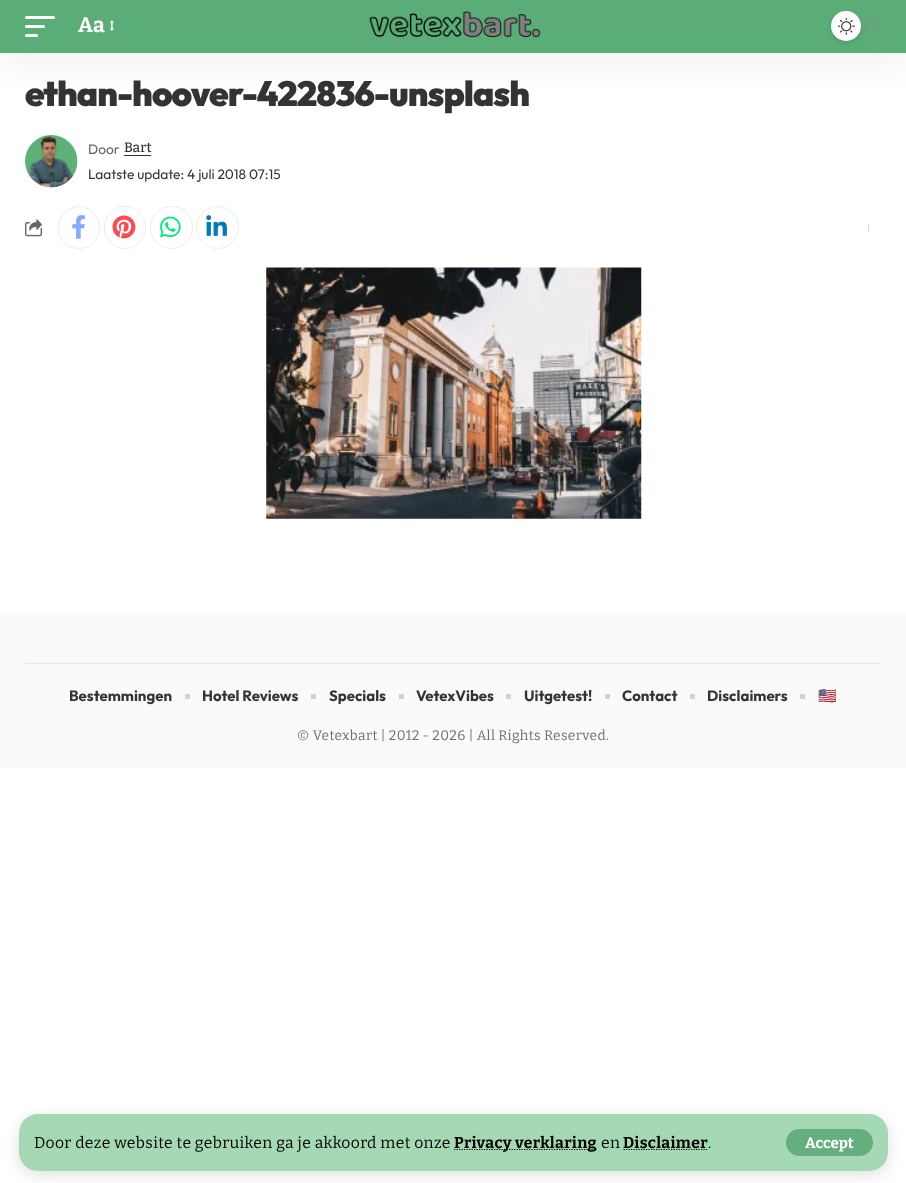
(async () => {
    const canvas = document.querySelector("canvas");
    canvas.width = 906;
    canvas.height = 1183;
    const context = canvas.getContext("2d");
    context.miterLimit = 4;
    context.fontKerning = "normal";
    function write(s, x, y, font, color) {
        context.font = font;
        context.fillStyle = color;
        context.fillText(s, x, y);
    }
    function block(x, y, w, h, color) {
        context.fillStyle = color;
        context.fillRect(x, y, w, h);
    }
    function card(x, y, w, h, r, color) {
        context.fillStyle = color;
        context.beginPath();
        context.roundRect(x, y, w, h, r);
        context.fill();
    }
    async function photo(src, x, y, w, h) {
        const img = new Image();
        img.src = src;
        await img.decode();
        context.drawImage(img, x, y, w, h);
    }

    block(0, 0, 906, 1183, "rgb(255, 255, 255)");
    context.fillStyle = "rgba(0, 0, 0, 0.07)";
    context.filter = "blur(19px)";
    context.beginPath();
    context.rect(0, 5, 906, 53);
    context.fill();
    context.filter = "none";
    block(0, 0, 906, 53, "rgb(91, 173, 119)");
    card(25, 16, 30, 3, 1.5, "rgb(255, 255, 255)");
    card(25, 25, 20, 3, 1.5, "rgb(255, 255, 255)");
    card(25, 34, 13, 3, 1.5, "rgb(255, 255, 255)");
    context.letterSpacing = "0.35px";
    write("Aa", 78, 32, "bold 21px Bitter", "rgb(255, 255, 255)");
    await photo("media/1.png", 110, 20, 4, 11);
    await photo("media/2.png", 369, 11, 172, 27);
    card(831, 18, 50, 17, 8.5, "rgb(98, 167, 122)");
    context.fillStyle = "rgba(0, 0, 0, 0.12)";
    context.filter = "blur(2.5px)";
    context.beginPath();
    context.roundRect(831, 13, 30, 30, 15);
    context.fill();
    context.filter = "none";
    context.fillStyle = "rgb(255, 255, 255)";
    context.beginPath();
    context.arc(846, 26, 15, 0, Math.PI * 2);
    context.fill();
    await photo("media/3.png", 838, 18, 17, 17);
    context.fillStyle = "rgba(0, 0, 0, 0.12)";
    context.filter = "blur(7.5px)";
    context.beginPath();
    context.roundRect(19, 1118, 869, 57, 19);
    context.fill();
    context.filter = "none";
    card(19, 1114, 869, 57, 19, "rgb(165, 216, 181)");
    write("Door deze website te gebruiken ga je akkoord met onze", 34, 1148, "15.75px Bitter", "rgb(0, 0, 0)");
    context.beginPath();
    context.moveTo(454, 1149.5);
    context.lineTo(597, 1149.5);
    context.strokeStyle = "rgb(0, 0, 0)";
    context.lineWidth = 1.2;
    context.setLineDash([1.25, 1.25]);
    context.stroke();
    write("Privacy verklaring", 454, 1148, "bold 15.75px Bitter", "rgb(0, 0, 0)");
    write("en", 601, 1148, "15.75px Bitter", "rgb(0, 0, 0)");
    context.beginPath();
    context.moveTo(623.5, 1149.5);
    context.lineTo(708.5, 1149.5);
    context.stroke();
    write("Disclaimer", 623, 1148, "bold 15.75px Bitter", "rgb(0, 0, 0)");
    write(".", 708, 1148, "15.75px Bitter", "rgb(0, 0, 0)");
    card(786, 1129, 87, 27, 13.5, "rgb(101, 174, 125)");
    context.letterSpacing = "0px";
    write("Accept", 805, 1148, "bold 15px Bitter", "rgb(255, 255, 255)");
    context.letterSpacing = "-1px";
    write("ethan-hoover-422836-unsplash", 25, 106, "900 35px Outfit", "rgb(51, 51, 51)");
    await photo("media/4.png", 25, 135, 53, 53);
    context.letterSpacing = "0px";
    write("Door", 88, 154, "13.75px Outfit", "rgb(102, 102, 102)");
    write("Bart", 124, 152, "500 13.75px Bitter", "rgb(51, 51, 51)");
    block(124, 155, 27, 1, "rgb(51, 51, 51)");
    write("Laatste update: 4 juli 2018 07:15", 88, 179, "13.75px Outfit", "rgb(51, 51, 51)");
    await photo("media/5.png", 25, 219, 17, 18);
    context.beginPath();
    context.roundRect(58.5, 206.5, 41, 42, 20.5);
    context.strokeStyle = "rgb(237, 237, 237)";
    context.lineWidth = 1;
    context.setLineDash([]);
    context.stroke();
    await photo("media/6.png", 72, 215, 13, 24);
    context.beginPath();
    context.roundRect(104.5, 206.5, 41, 42, 20.5);
    context.stroke();
    await photo("media/7.png", 112, 215, 24, 24);
    context.beginPath();
    context.arc(171.5, 227.5, 21, 0, Math.PI * 2);
    context.stroke();
    await photo("media/8.png", 160, 216, 21, 22);
    context.beginPath();
    context.arc(217.5, 227.5, 21, 0, Math.PI * 2);
    context.stroke();
    await photo("media/9.png", 206, 215, 21, 21);
    block(868, 224, 1, 7, "rgb(217, 217, 217)");
    await photo("media/10.png", 266, 267, 376, 252);
    block(0, 613, 906, 155, "rgb(250, 250, 250)");
    block(25, 663, 856, 1, "rgb(233, 233, 233)");
    write("Bestemmingen", 69, 701, "bold 15px Outfit", "rgb(51, 51, 51)");
    block(185, 694, 5, 5, "rgb(210, 210, 210)");
    write("Hotel Reviews", 202, 701, "bold 15px Outfit", "rgb(51, 51, 51)");
    block(311, 694, 5, 5, "rgb(210, 210, 210)");
    write("Specials", 329, 701, "bold 15px Outfit", "rgb(51, 51, 51)");
    block(399, 694, 5, 5, "rgb(210, 210, 210)");
    write("VetexVibes", 416, 701, "bold 15px Outfit", "rgb(51, 51, 51)");
    block(506, 694, 5, 5, "rgb(210, 210, 210)");
    write("Uitgetest!", 524, 701, "bold 15px Outfit", "rgb(51, 51, 51)");
    block(605, 694, 5, 5, "rgb(210, 210, 210)");
    write("Contact", 622, 701, "bold 15px Outfit", "rgb(51, 51, 51)");
    block(690, 694, 5, 5, "rgb(210, 210, 210)");
    write("Disclaimers", 707, 701, "bold 15px Outfit", "rgb(51, 51, 51)");
    block(800, 694, 5, 5, "rgb(210, 210, 210)");
    write("🇺🇸", 818, 701, "bold 15px Noto Color Emoji", "rgb(51, 51, 51)");
    context.letterSpacing = "0.35px";
    write("© Vetexbart | 2012 - 2026 | All Rights Reserved.", 297, 740, "13.75px Bitter", "rgb(111, 111, 111)");
})();
